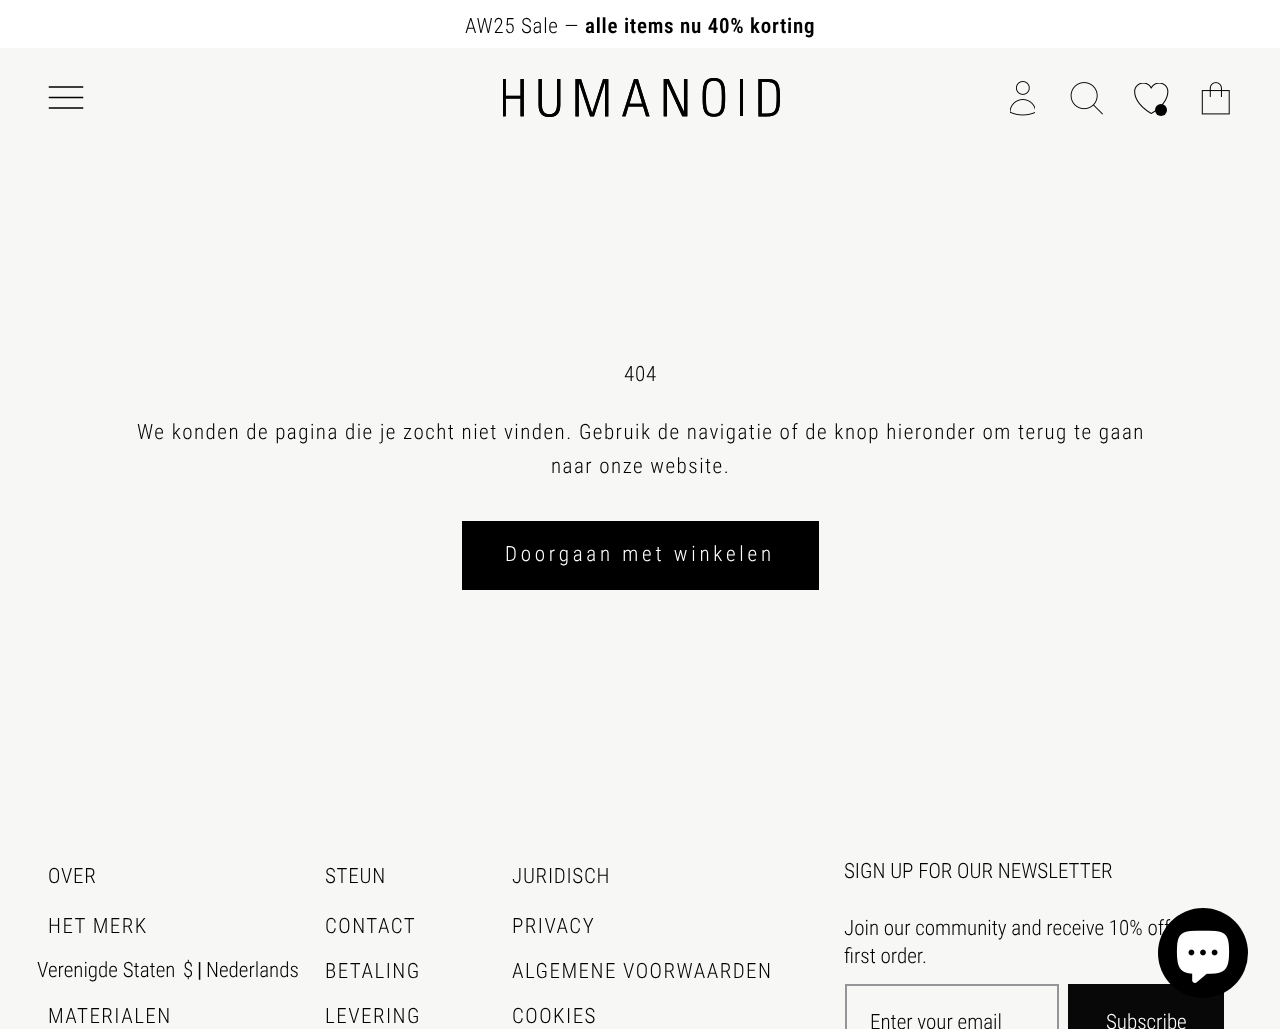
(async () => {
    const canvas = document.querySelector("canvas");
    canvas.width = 1280;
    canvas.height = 1029;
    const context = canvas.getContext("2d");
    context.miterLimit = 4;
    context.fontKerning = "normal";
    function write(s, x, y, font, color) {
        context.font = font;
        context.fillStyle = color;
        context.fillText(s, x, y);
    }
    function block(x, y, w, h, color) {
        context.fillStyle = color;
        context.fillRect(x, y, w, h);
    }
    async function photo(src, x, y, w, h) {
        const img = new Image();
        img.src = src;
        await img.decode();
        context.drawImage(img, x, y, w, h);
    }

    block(0, 0, 1280, 1029, "rgb(247, 247, 245)");
    block(0, 0, 1280, 48, "rgb(255, 255, 255)");
    context.letterSpacing = "0.75px";
    write("AW25 Sale —", 465, 33, "300 21px Roboto Condensed", "rgb(0, 0, 0)");
    write("alle items nu 40% korting", 585, 33, "600 21px Roboto Condensed", "rgb(0, 0, 0)");
    context.beginPath();
    context.moveTo(49.5, 108);
    context.lineTo(82.5, 108);
    context.moveTo(49.5, 97.5);
    context.lineTo(82.5, 97.5);
    context.moveTo(49.5, 87);
    context.lineTo(82.5, 87);
    context.strokeStyle = "rgb(0, 0, 0)";
    context.lineWidth = 1.5;
    context.lineCap = "square";
    context.stroke();
    await photo("media/1.png", 503, 78, 277, 39);
    await photo("media/2.png", 1010, 81, 25, 35);
    await photo("media/3.png", 1070, 82, 33, 33);
    await photo("media/4.png", 1134, 83, 35, 31);
    context.beginPath();
    context.arc(1161, 110, 6, 0, Math.PI * 2);
    context.fill();
    await photo("media/5.png", 1201, 82, 29, 33);
    write("404", 624, 381, "300 21px Roboto Condensed", "rgb(0, 0, 0)");
    context.letterSpacing = "1.47px";
    write("We konden de pagina die je zocht niet vinden. Gebruik de navigatie of de knop hieronder om terug te gaan", 137, 439, "300 21px Roboto Condensed", "rgb(0, 0, 0)");
    write("naar onze website.", 551, 473, "300 21px Roboto Condensed", "rgb(0, 0, 0)");
    context.beginPath();
    context.rect(463, 522, 355, 67);
    context.fill();
    context.lineWidth = 2;
    context.stroke();
    context.letterSpacing = "3.75px";
    write("Doorgaan met winkelen", 505, 561, "300 21px Roboto Condensed", "rgb(255, 255, 255)");
    context.letterSpacing = "0.75px";
    write("OVER", 48, 883, "300 21px Roboto Condensed", "rgb(0, 0, 0)");
    context.letterSpacing = "1.47px";
    write("HET MERK", 48, 933, "300 21px Roboto Condensed", "rgb(0, 0, 0)");
    write("MATERIALEN", 48, 1023, "300 21px Roboto Condensed", "rgb(0, 0, 0)");
    context.letterSpacing = "0.75px";
    write("STEUN", 325, 883, "300 21px Roboto Condensed", "rgb(0, 0, 0)");
    context.letterSpacing = "1.47px";
    write("CONTACT", 325, 933, "300 21px Roboto Condensed", "rgb(0, 0, 0)");
    write("BETALING", 325, 978, "300 21px Roboto Condensed", "rgb(0, 0, 0)");
    write("LEVERING", 325, 1023, "300 21px Roboto Condensed", "rgb(0, 0, 0)");
    context.letterSpacing = "0.75px";
    write("JURIDISCH", 512, 883, "300 21px Roboto Condensed", "rgb(0, 0, 0)");
    context.letterSpacing = "1.47px";
    write("PRIVACY", 512, 933, "300 21px Roboto Condensed", "rgb(0, 0, 0)");
    write("ALGEMENE VOORWAARDEN", 512, 978, "300 21px Roboto Condensed", "rgb(0, 0, 0)");
    write("COOKIES", 512, 1023, "300 21px Roboto Condensed", "rgb(0, 0, 0)");
    context.letterSpacing = "0px";
    write("SIGN UP FOR OUR NEWSLETTER", 844, 878, "300 21px Roboto Condensed", "rgb(0, 0, 0)");
    write("Join our community and receive 10% off", 844, 935, "300 21px Roboto Condensed", "rgb(0, 0, 0)");
    write("first order.", 844, 963, "300 21px Roboto Condensed", "rgb(0, 0, 0)");
    context.strokeStyle = "rgb(148, 149, 150)";
    context.strokeRect(846, 985, 212, 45);
    write("Enter your email", 870, 1029, "300 21px Roboto Condensed", "rgb(0, 0, 0)");
    block(1068, 984, 156, 45, "rgb(8, 8, 8)");
    write("Subscribe", 1106, 1029, "300 21px Roboto Condensed", "rgb(255, 255, 255)");
    write("Verenigde Staten", 37, 977, "300 21px Roboto Condensed", "rgb(0, 0, 0)");
    write("$", 183, 977, "300 21px Roboto Condensed", "rgb(0, 0, 0)");
    write("|", 197, 977, "21px Roboto Condensed", "rgb(0, 0, 0)");
    write("Nederlands", 206, 977, "300 21px Roboto Condensed", "rgb(0, 0, 0)");
    context.beginPath();
    context.arc(1203, 953, 45, 0, Math.PI * 2);
    context.fill();
    await photo("media/6.png", 1176, 930, 54, 53);
})();
